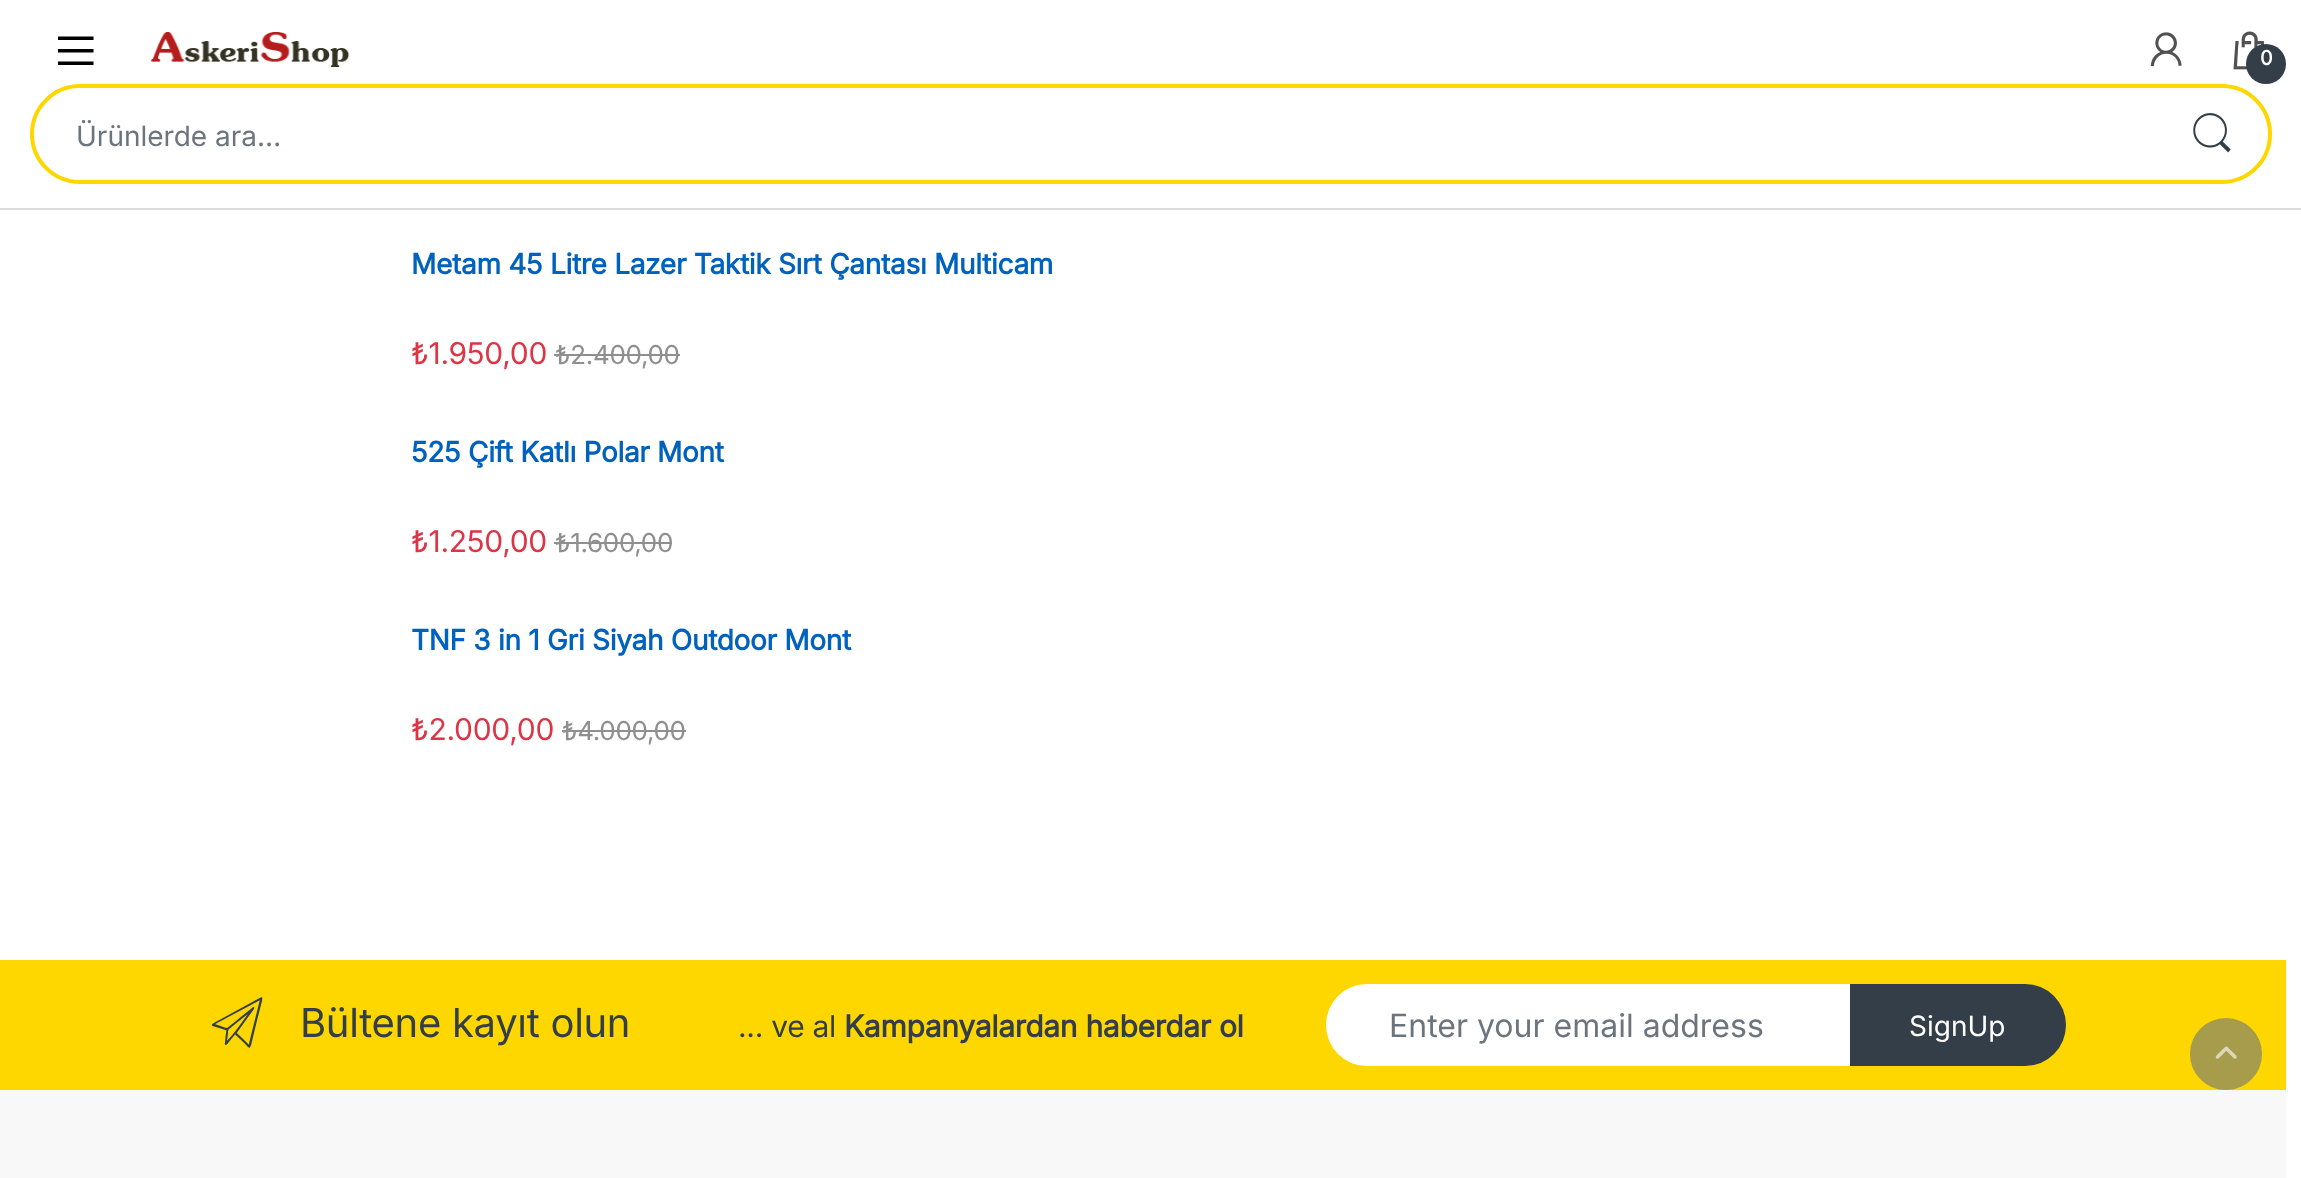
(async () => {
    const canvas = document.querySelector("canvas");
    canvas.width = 2301;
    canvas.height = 1178;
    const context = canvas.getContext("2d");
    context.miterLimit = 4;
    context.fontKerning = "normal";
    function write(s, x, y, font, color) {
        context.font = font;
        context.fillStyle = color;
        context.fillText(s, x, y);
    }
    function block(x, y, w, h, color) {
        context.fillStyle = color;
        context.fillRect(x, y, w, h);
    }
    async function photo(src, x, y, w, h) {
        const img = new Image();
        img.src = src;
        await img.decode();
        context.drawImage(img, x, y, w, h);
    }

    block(0, 0, 2301, 1178, "rgb(255, 255, 255)");
    block(0, 208, 2301, 2, "rgb(221, 221, 221)");
    context.fillStyle = "rgb(0, 0, 0)";
    context.beginPath();
    context.moveTo(58, 65);
    context.lineTo(58, 61.5);
    context.lineTo(93.5, 61.5);
    context.lineTo(93.5, 65);
    context.closePath();
    context.moveTo(58, 49);
    context.lineTo(93.5, 49);
    context.lineTo(93.5, 52.5);
    context.lineTo(58, 52.5);
    context.closePath();
    context.moveTo(58, 36.5);
    context.lineTo(93.5, 36.5);
    context.lineTo(93.5, 40);
    context.lineTo(58, 40);
    context.closePath();
    context.fill();
    await photo("media/1.png", 151, 32, 199, 35);
    await photo("media/2.png", 2150, 32, 32, 35);
    await photo("media/3.png", 2233, 31, 32, 39);
    context.fillStyle = "rgb(51, 62, 72)";
    context.beginPath();
    context.arc(2266, 64, 20, 0, Math.PI * 2);
    context.fill();
    context.letterSpacing = "-0.3px";
    write("0", 2260, 65, "bold 20px Inter", "rgb(255, 255, 255)");
    context.beginPath();
    context.roundRect(32, 86, 2238, 96, 48);
    context.strokeStyle = "rgb(254, 215, 0)";
    context.lineWidth = 4;
    context.stroke();
    context.letterSpacing = "0px";
    write("Ürünlerde ara…", 76, 146, "28px Inter", "rgb(108, 117, 125)");
    await photo("media/4.png", 2193, 113, 38, 40);
    context.letterSpacing = "-0.3px";
    write("Metam 45 Litre Lazer Taktik Sırt Çantası Multicam", 411, 274, "bold 28px Inter", "rgb(0, 98, 189)");
    write("₺1.950,00", 411, 364, "30px Inter", "rgb(220, 53, 69)");
    write("₺2.400,00", 555, 364, "26px Inter", "rgb(143, 143, 143)");
    block(554, 354, 126, 2, "rgb(143, 143, 143)");
    write("525 Çift Katlı Polar Mont", 411, 462, "bold 28px Inter", "rgb(0, 98, 189)");
    write("₺1.250,00", 411, 552, "30px Inter", "rgb(220, 53, 69)");
    write("₺1.600,00", 555, 552, "26px Inter", "rgb(143, 143, 143)");
    block(554, 542, 118, 2, "rgb(143, 143, 143)");
    write("TNF 3 in 1 Gri Siyah Outdoor Mont", 411, 650, "bold 28px Inter", "rgb(0, 98, 189)");
    write("₺2.000,00", 411, 740, "30px Inter", "rgb(220, 53, 69)");
    write("₺4.000,00", 562, 740, "26px Inter", "rgb(143, 143, 143)");
    block(562, 730, 124, 2, "rgb(143, 143, 143)");
    block(0, 960, 2286, 130, "rgb(254, 215, 0)");
    await photo("media/5.png", 211, 997, 52, 51);
    write("Bültene kayıt olun", 300, 1037, "40px Inter", "rgb(51, 62, 72)");
    write("... ve al", 738, 1037, "30px Inter", "rgb(51, 62, 72)");
    write("Kampanyalardan haberdar ol", 844, 1037, "bold 30px Inter", "rgb(51, 62, 72)");
    context.fillStyle = "rgb(255, 255, 255)";
    context.beginPath();
    context.roundRect(1326, 984, 524, 82, [41, 0, 0, 41]);
    context.fill();
    context.letterSpacing = "0px";
    write("Enter your email address", 1389, 1037, "32px Inter", "rgb(108, 117, 125)");
    context.fillStyle = "rgb(51, 62, 72)";
    context.beginPath();
    context.roundRect(1850, 984, 216, 82, [0, 41, 41, 0]);
    context.fill();
    write("SignUp", 1909, 1036, "28px Inter", "rgb(255, 255, 255)");
    block(0, 1090, 2286, 88, "rgb(248, 248, 248)");
    context.fillStyle = "rgb(166, 156, 75)";
    context.beginPath();
    context.arc(2226, 1054, 35, 0, Math.PI * 2);
    context.fill();
    context.strokeStyle = "rgb(166, 156, 75)";
    context.lineWidth = 2;
    context.stroke();
    await photo("media/6.png", 2215, 1046, 22, 13);
})();
